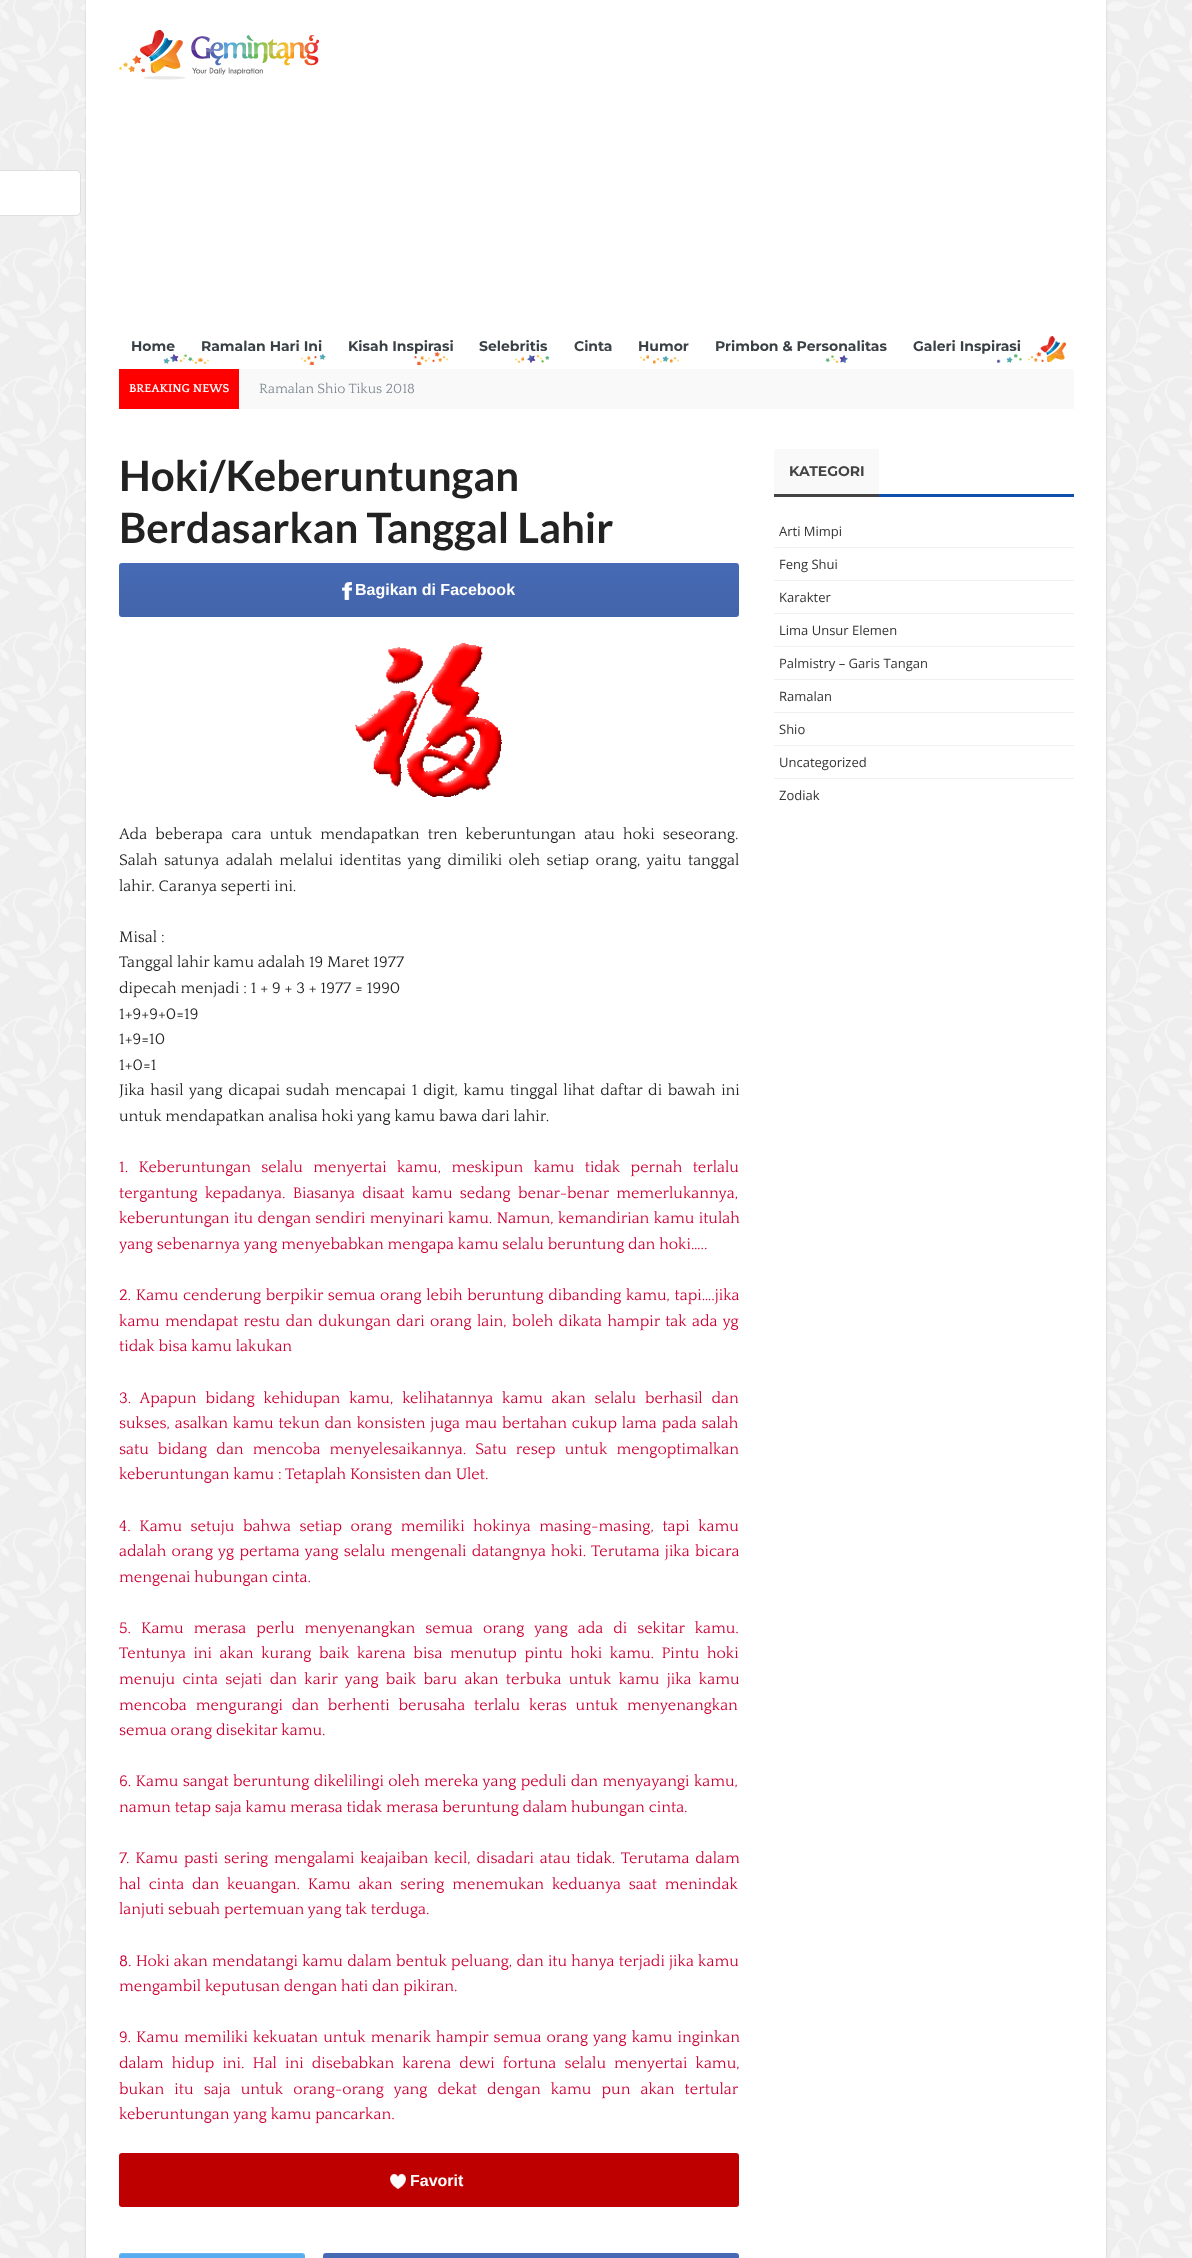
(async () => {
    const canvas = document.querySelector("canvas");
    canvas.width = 1192;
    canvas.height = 2258;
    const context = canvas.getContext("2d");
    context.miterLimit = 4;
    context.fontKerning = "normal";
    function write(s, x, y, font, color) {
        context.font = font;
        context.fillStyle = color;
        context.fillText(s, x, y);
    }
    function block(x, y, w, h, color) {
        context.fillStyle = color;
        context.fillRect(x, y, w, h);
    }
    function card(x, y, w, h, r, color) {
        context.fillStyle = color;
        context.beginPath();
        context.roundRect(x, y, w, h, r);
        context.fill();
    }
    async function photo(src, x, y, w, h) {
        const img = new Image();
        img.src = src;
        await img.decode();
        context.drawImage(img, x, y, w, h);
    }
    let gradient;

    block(0, 0, 1192, 2258, "rgb(244, 244, 244)");
    await photo("media/1.png", 0, 0, 1192, 2258);
    context.fillStyle = "rgba(0, 0, 0, 0.15)";
    context.filter = "blur(1px)";
    context.beginPath();
    context.rect(86, 1, 1020, 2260);
    context.fill();
    context.filter = "none";
    block(86, 0, 1020, 2258, "rgb(255, 255, 255)");
    await photo("media/2.png", 119, 30, 200, 50);
    await photo("media/3.png", 163, 336, 903, 29);
    write("Home", 131, 351, "bold 14px Montserrat", "rgb(58, 65, 69)");
    write("Ramalan Hari Ini", 201, 351, "bold 14px Montserrat", "rgb(58, 65, 69)");
    write("Kisah Inspirasi", 348, 351, "bold 14px Montserrat", "rgb(58, 65, 69)");
    write("Selebritis", 479, 351, "bold 14px Montserrat", "rgb(58, 65, 69)");
    write("Cinta", 574, 351, "bold 14px Montserrat", "rgb(58, 65, 69)");
    write("Humor", 638, 351, "bold 14px Montserrat", "rgb(58, 65, 69)");
    write("Primbon & Personalitas", 715, 351, "bold 14px Montserrat", "rgb(58, 65, 69)");
    write("Galeri Inspirasi", 913, 351, "bold 14px Montserrat", "rgb(58, 65, 69)");
    block(239, 369, 835, 40, "rgb(249, 249, 249)");
    block(119, 369, 120, 40, "rgb(255, 0, 0)");
    write("BREAKING NEWS", 129, 392, "bold 12px Quattrocento", "rgb(255, 255, 255)");
    write("Ramalan Shio Tikus 2018", 259, 393, "14px Quattrocento", "rgb(129, 139, 146)");
    context.fillStyle = "rgb(255, 255, 255)";
    context.beginPath();
    context.roundRect(-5.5, 170.5, 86, 45, 4.5);
    context.fill();
    context.strokeStyle = "rgb(223, 223, 223)";
    context.stroke();
    write("Hoki/Keberuntungan", 119, 491, "bold 42px Lato", "rgb(34, 34, 34)");
    write("Berdasarkan Tanggal Lahir", 119, 543, "bold 42px Lato", "rgb(34, 34, 34)");
    gradient = context.createLinearGradient(429, 563, 429, 617);
    gradient.addColorStop(0, "rgb(70, 106, 181)");
    gradient.addColorStop(1, "rgb(66, 100, 170)");
    context.fillStyle = gradient;
    context.beginPath();
    context.roundRect(119, 563, 620, 54, 3);
    context.fill();
    await photo("media/4.png", 342, 582, 10, 18);
    write("Bagikan di Facebook", 355, 595, "bold 16px Liberation Sans", "rgb(255, 255, 255)");
    await photo("media/5.png", 355, 643, 147, 154);
    context.wordSpacing = "4.25px";
    write("Ada beberapa cara untuk mendapatkan tren keberuntungan atau hoki seseorang.", 119, 839, "16px Quattrocento", "rgb(34, 34, 34)");
    context.wordSpacing = "2.5px";
    write("Salah satunya adalah melalui identitas yang dimiliki oleh setiap orang, yaitu tanggal", 119, 865, "16px Quattrocento", "rgb(34, 34, 34)");
    context.wordSpacing = "0px";
    write("lahir. Caranya seperti ini.", 119, 891, "16px Quattrocento", "rgb(34, 34, 34)");
    write("Misal :", 119, 942, "16px Quattrocento", "rgb(34, 34, 34)");
    write("Tanggal lahir kamu adalah 19 Maret 1977", 119, 967, "16px Quattrocento", "rgb(34, 34, 34)");
    write("dipecah menjadi : 1 + 9 + 3 + 1977 = 1990", 119, 993, "16px Quattrocento", "rgb(34, 34, 34)");
    write("1+9+9+0=19", 119, 1019, "16px Quattrocento", "rgb(34, 34, 34)");
    write("1+9=10", 119, 1044, "16px Quattrocento", "rgb(34, 34, 34)");
    write("1+0=1", 119, 1070, "16px Quattrocento", "rgb(34, 34, 34)");
    context.wordSpacing = "1.75px";
    write("Jika hasil yang dicapai sudah mencapai 1 digit, kamu tinggal lihat daftar di bawah ini", 119, 1095, "16px Quattrocento", "rgb(34, 34, 34)");
    context.wordSpacing = "0px";
    write("untuk mendapatkan analisa hoki yang kamu bawa dari lahir.", 119, 1121, "16px Quattrocento", "rgb(34, 34, 34)");
    context.wordSpacing = "6.5px";
    write("1. Keberuntungan selalu menyertai kamu, meskipun kamu tidak pernah terlalu", 119, 1172, "16px Quattrocento", "rgb(204, 0, 51)");
    context.wordSpacing = "3.5px";
    write("tergantung kepadanya. Biasanya disaat kamu sedang benar-benar memerlukannya,", 119, 1198, "16px Quattrocento", "rgb(204, 0, 51)");
    context.wordSpacing = "0.5px";
    write("keberuntungan itu dengan sendiri menyinari kamu. Namun, kemandirian kamu itulah", 119, 1223, "16px Quattrocento", "rgb(204, 0, 51)");
    context.wordSpacing = "0px";
    write("yang sebenarnya yang menyebabkan mengapa kamu selalu beruntung dan hoki…..", 119, 1249, "16px Quattrocento", "rgb(204, 0, 51)");
    context.wordSpacing = "0.75px";
    write("2. Kamu cenderung berpikir semua orang lebih beruntung dibanding kamu, tapi….jika", 119, 1300, "16px Quattrocento", "rgb(204, 0, 51)");
    context.wordSpacing = "1.5px";
    write("kamu mendapat restu dan dukungan dari orang lain, boleh dikata hampir tak ada yg", 119, 1326, "16px Quattrocento", "rgb(204, 0, 51)");
    context.wordSpacing = "0px";
    write("tidak bisa kamu lakukan", 119, 1351, "16px Quattrocento", "rgb(204, 0, 51)");
    context.wordSpacing = "5px";
    write("3. Apapun bidang kehidupan kamu, kelihatannya kamu akan selalu berhasil dan", 119, 1403, "16px Quattrocento", "rgb(204, 0, 51)");
    context.wordSpacing = "1px";
    write("sukses, asalkan kamu tekun dan konsisten juga mau bertahan cukup lama pada salah", 119, 1428, "16px Quattrocento", "rgb(204, 0, 51)");
    context.wordSpacing = "5.25px";
    write("satu bidang dan mencoba menyelesaikannya. Satu resep untuk mengoptimalkan", 119, 1454, "16px Quattrocento", "rgb(204, 0, 51)");
    context.wordSpacing = "0px";
    write("keberuntungan kamu : Tetaplah Konsisten dan Ulet.", 119, 1479, "16px Quattrocento", "rgb(204, 0, 51)");
    context.wordSpacing = "4.75px";
    write("4. Kamu setuju bahwa setiap orang memiliki hokinya masing-masing, tapi kamu", 119, 1531, "16px Quattrocento", "rgb(204, 0, 51)");
    context.wordSpacing = "1.4px";
    write("adalah orang yg pertama yang selalu mengenali datangnya hoki. Terutama jika bicara", 119, 1556, "16px Quattrocento", "rgb(204, 0, 51)");
    context.wordSpacing = "0px";
    write("mengenai hubungan cinta.", 119, 1582, "16px Quattrocento", "rgb(204, 0, 51)");
    context.wordSpacing = "6.1px";
    write("5. Kamu merasa perlu menyenangkan semua orang yang ada di sekitar kamu.", 119, 1633, "16px Quattrocento", "rgb(204, 0, 51)");
    context.wordSpacing = "3.75px";
    write("Tentunya ini akan kurang baik karena bisa menutup pintu hoki kamu. Pintu hoki", 119, 1658, "16px Quattrocento", "rgb(204, 0, 51)");
    context.wordSpacing = "3.5px";
    write("menuju cinta sejati dan karir yang baik baru akan terbuka untuk kamu jika kamu", 119, 1684, "16px Quattrocento", "rgb(204, 0, 51)");
    context.wordSpacing = "5px";
    write("mencoba mengurangi dan berhenti berusaha terlalu keras untuk menyenangkan", 119, 1710, "16px Quattrocento", "rgb(204, 0, 51)");
    context.wordSpacing = "0px";
    write("semua orang disekitar kamu.", 119, 1735, "16px Quattrocento", "rgb(204, 0, 51)");
    context.wordSpacing = "0.5px";
    write("6. Kamu sangat beruntung dikelilingi oleh mereka yang peduli dan menyayangi kamu,", 119, 1786, "16px Quattrocento", "rgb(204, 0, 51)");
    context.wordSpacing = "0px";
    write("namun tetap saja kamu merasa tidak merasa beruntung dalam hubungan cinta.", 119, 1812, "16px Quattrocento", "rgb(204, 0, 51)");
    context.wordSpacing = "2px";
    write("7. Kamu pasti sering mengalami keajaiban kecil, disadari atau tidak. Terutama dalam", 119, 1863, "16px Quattrocento", "rgb(204, 0, 51)");
    context.wordSpacing = "4px";
    write("hal cinta dan keuangan. Kamu akan sering menemukan keduanya saat menindak", 119, 1889, "16px Quattrocento", "rgb(204, 0, 51)");
    context.wordSpacing = "0px";
    write("lanjuti sebuah pertemuan yang tak terduga.", 119, 1914, "16px Quattrocento", "rgb(204, 0, 51)");
    context.wordSpacing = "0.4px";
    write("8. Hoki akan mendatangi kamu dalam bentuk peluang, dan itu hanya terjadi jika kamu", 119, 1966, "16px Quattrocento", "rgb(204, 0, 51)");
    context.wordSpacing = "0px";
    write("mengambil keputusan dengan hati dan pikiran.", 119, 1991, "16px Quattrocento", "rgb(204, 0, 51)");
    context.wordSpacing = "1.25px";
    write("9. Kamu memiliki kekuatan untuk menarik hampir semua orang yang kamu inginkan", 119, 2042, "16px Quattrocento", "rgb(204, 0, 51)");
    context.wordSpacing = "4.25px";
    write("dalam hidup ini. Hal ini disebabkan karena dewi fortuna selalu menyertai kamu,", 119, 2068, "16px Quattrocento", "rgb(204, 0, 51)");
    context.wordSpacing = "6.25px";
    write("bukan itu saja untuk orang-orang yang dekat dengan kamu pun akan tertular", 119, 2094, "16px Quattrocento", "rgb(204, 0, 51)");
    context.wordSpacing = "0px";
    write("keberuntungan yang kamu pancarkan.", 119, 2119, "16px Quattrocento", "rgb(204, 0, 51)");
    card(119, 2153, 620, 54, 3, "rgb(190, 0, 0)");
    await photo("media/6.png", 390, 2173, 16, 16);
    write("Favorit", 410, 2186, "bold 16px Liberation Sans", "rgb(255, 255, 255)");
    card(119, 2253, 186, 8, 3, "rgb(85, 172, 238)");
    context.fillStyle = "rgba(255, 255, 255, 0.15)";
    context.beginPath();
    context.moveTo(122, 2254);
    context.lineTo(302, 2254);
    context.lineTo(304, 2255);
    context.lineTo(305, 2257);
    context.bezierCurveTo(305, 2255, 304, 2253, 302, 2253);
    context.lineTo(121, 2253);
    context.bezierCurveTo(119, 2254, 119, 2255, 119, 2257);
    context.bezierCurveTo(119, 2255, 120, 2254, 122, 2254);
    context.closePath();
    context.fill();
    gradient = context.createLinearGradient(531, 2253, 531, 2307);
    gradient.addColorStop(0, "rgb(70, 106, 181)");
    gradient.addColorStop(1, "rgb(66, 100, 170)");
    context.fillStyle = gradient;
    context.beginPath();
    context.roundRect(323, 2253, 416, 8, 3);
    context.fill();
    block(879, 494, 195, 3, "rgb(17, 79, 173)");
    block(774, 449, 105, 45, "rgb(249, 249, 249)");
    block(774, 494, 105, 3, "rgb(68, 68, 68)");
    write("KATEGORI", 789, 476, "bold 14px Montserrat", "rgb(68, 68, 68)");
    block(774, 547, 300, 1, "rgb(240, 240, 240)");
    write("Arti Mimpi", 779, 536, "13px Open Sans", "rgb(52, 52, 52)");
    block(774, 580, 300, 1, "rgb(240, 240, 240)");
    write("Feng Shui", 779, 569, "13px Open Sans", "rgb(52, 52, 52)");
    block(774, 613, 300, 1, "rgb(240, 240, 240)");
    write("Karakter", 779, 602, "13px Open Sans", "rgb(52, 52, 52)");
    block(774, 646, 300, 1, "rgb(240, 240, 240)");
    write("Lima Unsur Elemen", 779, 635, "13px Open Sans", "rgb(52, 52, 52)");
    block(774, 679, 300, 1, "rgb(240, 240, 240)");
    write("Palmistry – Garis Tangan", 779, 668, "13px Open Sans", "rgb(52, 52, 52)");
    block(774, 712, 300, 1, "rgb(240, 240, 240)");
    write("Ramalan", 779, 701, "13px Open Sans", "rgb(52, 52, 52)");
    block(774, 745, 300, 1, "rgb(240, 240, 240)");
    write("Shio", 779, 734, "13px Open Sans", "rgb(52, 52, 52)");
    block(774, 778, 300, 1, "rgb(240, 240, 240)");
    write("Uncategorized", 779, 767, "13px Open Sans", "rgb(52, 52, 52)");
    write("Zodiak", 779, 800, "13px Open Sans", "rgb(52, 52, 52)");
})();
